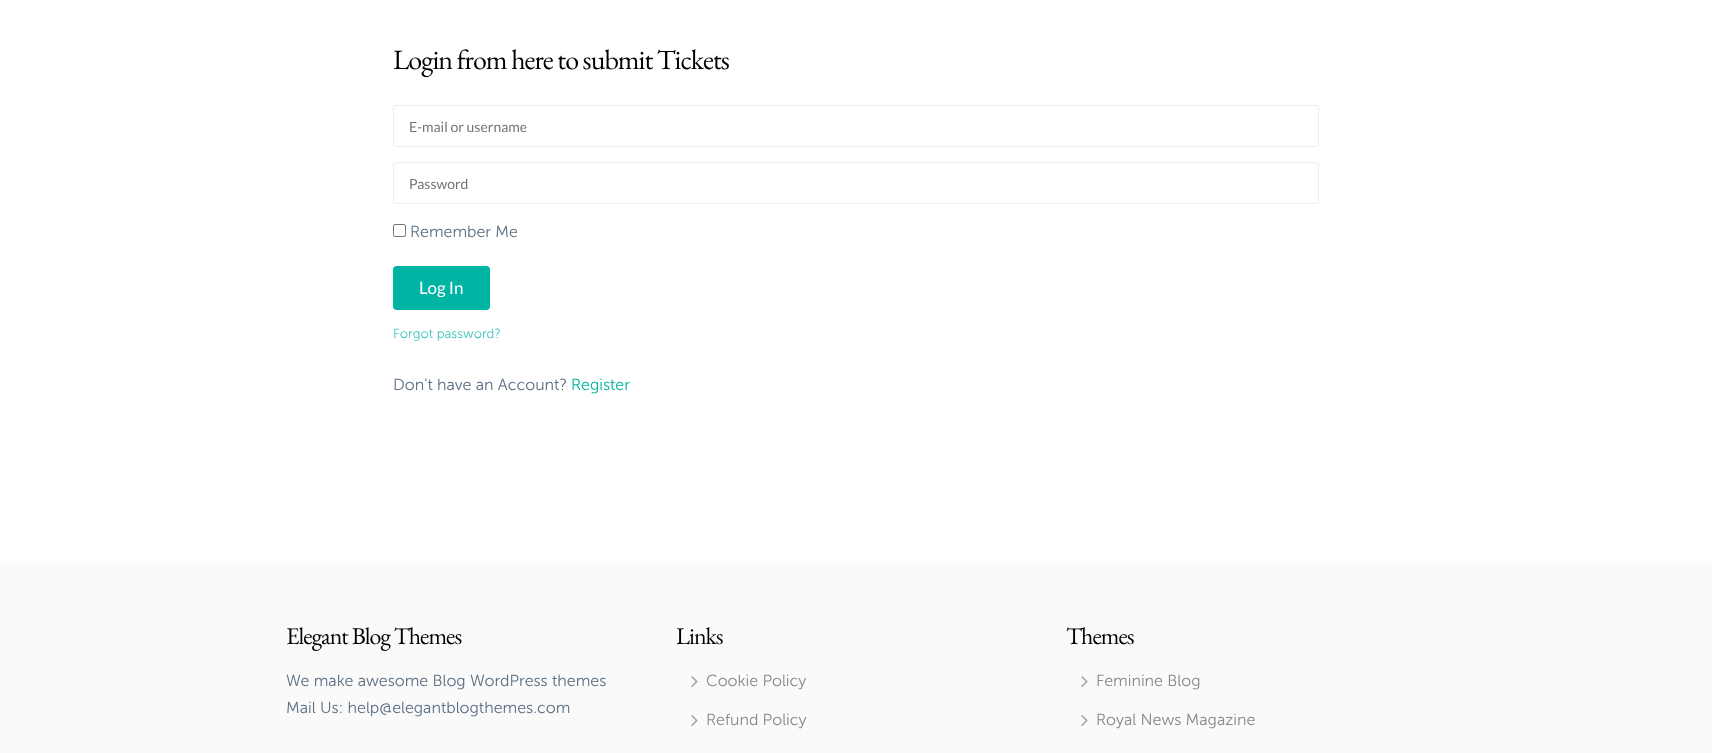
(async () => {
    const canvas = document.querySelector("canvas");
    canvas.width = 1712;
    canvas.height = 753;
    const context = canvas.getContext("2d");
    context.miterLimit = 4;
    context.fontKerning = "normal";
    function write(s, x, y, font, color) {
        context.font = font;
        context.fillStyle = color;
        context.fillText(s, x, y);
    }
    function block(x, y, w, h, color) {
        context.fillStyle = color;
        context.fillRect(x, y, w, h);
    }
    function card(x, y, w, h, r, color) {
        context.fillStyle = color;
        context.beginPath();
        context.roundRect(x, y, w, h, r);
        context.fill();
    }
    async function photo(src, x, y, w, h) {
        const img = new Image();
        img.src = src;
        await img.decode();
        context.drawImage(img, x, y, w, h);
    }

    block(0, 0, 1712, 753, "rgb(255, 255, 255)");
    context.letterSpacing = "-1px";
    write("Login from here to submit Tickets", 393, 69, "28px EB Garamond", "rgb(0, 0, 0)");
    context.beginPath();
    context.roundRect(393.5, 105.5, 925, 41, 2.5);
    context.strokeStyle = "rgb(238, 238, 238)";
    context.stroke();
    context.letterSpacing = "0px";
    write("E-mail or username", 409, 132, "14px Lato", "rgb(117, 117, 117)");
    context.beginPath();
    context.roundRect(393.5, 162.5, 925, 41, 2.5);
    context.stroke();
    write("Password", 409, 189, "14px Lato", "rgb(117, 117, 117)");
    context.beginPath();
    context.roundRect(393.5, 224.5, 12, 12, 1.5);
    context.strokeStyle = "rgb(118, 118, 118)";
    context.stroke();
    write("Remember Me", 410, 237, "300 16px Museo Sans", "rgb(91, 111, 130)");
    card(393, 266, 97, 44, 4, "rgb(0, 180, 164)");
    write("Log In", 419, 294, "17px Lato", "rgb(255, 255, 255)");
    write("Forgot password?", 393, 338, "300 13.25px Museo Sans", "rgb(64, 199, 187)");
    write("Don't have an Account?", 393, 390, "300 16px Museo Sans", "rgb(91, 111, 130)");
    write("Register", 571, 390, "300 16px Museo Sans", "rgb(0, 180, 164)");
    block(0, 563, 1712, 190, "rgb(250, 250, 250)");
    context.letterSpacing = "-1px";
    write("Elegant Blog Themes", 286, 644, "24px EB Garamond", "rgb(0, 0, 0)");
    context.letterSpacing = "0px";
    write("We make awesome Blog WordPress themes", 286, 686, "300 16px Museo Sans", "rgb(91, 111, 130)");
    write("Mail Us: help@elegantblogthemes.com", 286, 713, "300 16px Museo Sans", "rgb(91, 111, 130)");
    context.letterSpacing = "-1px";
    write("Links", 676, 644, "24px EB Garamond", "rgb(0, 0, 0)");
    await photo("media/1.png", 691, 676, 7, 11);
    context.letterSpacing = "0px";
    write("Cookie Policy", 706, 686, "300 16px Museo Sans", "rgb(136, 136, 136)");
    await photo("media/1.png", 691, 715, 7, 11);
    write("Refund Policy", 706, 725, "300 16px Museo Sans", "rgb(136, 136, 136)");
    context.letterSpacing = "-1px";
    write("Themes", 1066, 644, "24px EB Garamond", "rgb(0, 0, 0)");
    await photo("media/1.png", 1081, 676, 7, 11);
    context.letterSpacing = "0px";
    write("Feminine Blog", 1096, 686, "300 16px Museo Sans", "rgb(136, 136, 136)");
    await photo("media/1.png", 1081, 715, 7, 11);
    write("Royal News Magazine", 1096, 725, "300 16px Museo Sans", "rgb(136, 136, 136)");
})();
